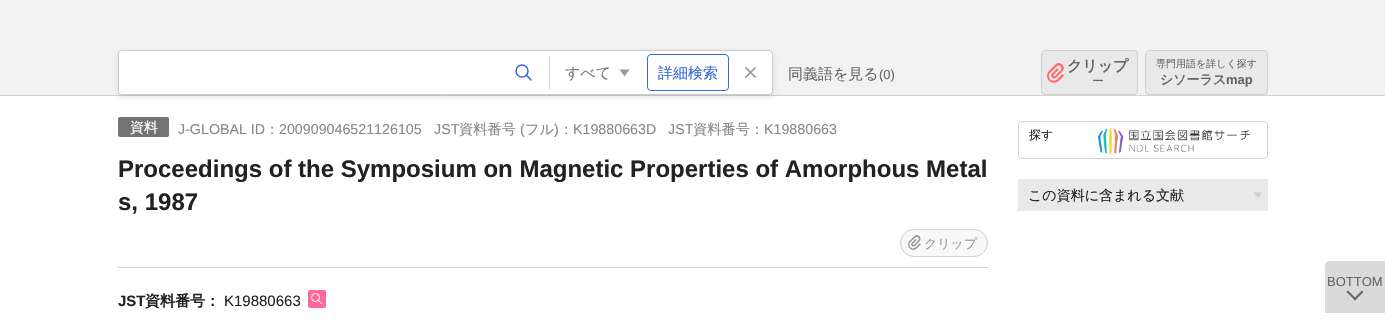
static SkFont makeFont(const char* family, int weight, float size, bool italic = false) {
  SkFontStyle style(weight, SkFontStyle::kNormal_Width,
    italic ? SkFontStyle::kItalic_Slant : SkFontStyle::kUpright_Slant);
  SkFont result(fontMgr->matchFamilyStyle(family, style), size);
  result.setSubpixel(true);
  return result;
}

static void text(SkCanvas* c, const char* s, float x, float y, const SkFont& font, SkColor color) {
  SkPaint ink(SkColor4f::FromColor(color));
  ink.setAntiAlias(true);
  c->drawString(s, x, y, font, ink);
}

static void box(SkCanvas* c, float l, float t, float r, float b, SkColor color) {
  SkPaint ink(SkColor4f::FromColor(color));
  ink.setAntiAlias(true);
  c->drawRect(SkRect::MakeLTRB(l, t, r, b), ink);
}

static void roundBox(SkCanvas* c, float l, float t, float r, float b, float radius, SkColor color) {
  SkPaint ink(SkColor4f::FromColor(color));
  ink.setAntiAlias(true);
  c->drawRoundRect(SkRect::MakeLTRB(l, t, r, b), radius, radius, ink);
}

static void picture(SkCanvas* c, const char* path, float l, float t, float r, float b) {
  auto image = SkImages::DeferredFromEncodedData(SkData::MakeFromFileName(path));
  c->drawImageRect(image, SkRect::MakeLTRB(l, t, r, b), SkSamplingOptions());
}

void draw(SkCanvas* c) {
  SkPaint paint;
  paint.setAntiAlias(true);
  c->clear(0xffffffff);
  box(c, 0, 0, 1385, 95, 0xfff2f2f2);
  box(c, 0, 95, 1385, 96, 0xffd1d1d1);
  paint.setColor(0x1a000000);
  paint.setMaskFilter(SkMaskFilter::MakeBlur(kNormal_SkBlurStyle, 2.5f));
  c->drawRoundRect(SkRect::MakeLTRB(118, 52, 773, 97), 4, 4, paint);
  paint.setMaskFilter(nullptr);
  paint.setColor(0xffffffff);
  c->drawRoundRect(SkRect::MakeLTRB(118.5f, 50.5f, 772.5f, 94.5f), 3.5f, 3.5f, paint);
  paint.setStyle(SkPaint::kStroke_Style);
  paint.setStrokeWidth(1);
  paint.setColor(0xffcccccc);
  c->drawRoundRect(SkRect::MakeLTRB(118.5f, 50.5f, 772.5f, 94.5f), 3.5f, 3.5f, paint);
  c->save();
  c->clipPath(SkPathBuilder().moveTo(122, 51).lineTo(769, 51).cubicTo(770.5f, 51, 772, 52.5f, 772, 54).lineTo(772, 91).cubicTo(772, 92.5f, 770.5f, 94, 769, 94).lineTo(122, 94).cubicTo(120.5f, 94, 119, 92.5f, 119, 91).lineTo(119, 54).cubicTo(119, 52.5f, 120.5f, 51, 122, 51).close().detach(), true);
  roundBox(c, 119, 51, 499, 94, 4, 0xffffffff);
  c->restore();
  paint.setStrokeWidth(1.5f);
  paint.setColor(0xff346ad9);
  c->drawCircle(522, 71, 6, paint);
  paint.setStrokeCap(SkPaint::kRound_Cap);
  paint.setStrokeJoin(SkPaint::kRound_Join);
  c->drawPath(SkPathBuilder().moveTo(526.5f, 75).lineTo(531, 80).detach(), paint);
  paint.setStyle(SkPaint::kFill_Style);
  paint.setColor(0xff999999);
  c->drawPath(SkPathBuilder().moveTo(629.5f, 69.5f).lineTo(624.5f, 76.5f).lineTo(619.5f, 69.5f).close().detach(), paint);
  box(c, 549, 56, 550, 89, 0xffd1d1d1);
  SkFont face1 = makeFont("WenQuanYi Zen Hei", 500, 15);
  text(c, "すべて", 565, 78, face1, 0xff777777);
  paint.setStyle(SkPaint::kStroke_Style);
  paint.setStrokeWidth(1);
  paint.setStrokeCap(SkPaint::kButt_Cap);
  paint.setStrokeJoin(SkPaint::kMiter_Join);
  paint.setColor(0xff346ad9);
  c->drawRoundRect(SkRect::MakeLTRB(647.5f, 54.5f, 728.5f, 90.5f), 3.5f, 3.5f, paint);
  text(c, "詳細検索", 658, 78, face1, 0xff346ad9);
  picture(c, "img_01.png", 745, 67, 756, 78);
  text(c, "同義語を見る", 788, 79, face1, 0xff666666);
  SkFont face2 = makeFont("Liberation Sans", 400, 13);
  text(c, "(0)", 879, 79, face2, 0xff666666);
  roundBox(c, 1041, 50, 1138, 95, 4, 0xffe9e9e9);
  picture(c, "img_02.png", 1047, 63, 1064, 83);
  paint.setColor(0xffd1d1d1);
  c->drawRoundRect(SkRect::MakeLTRB(1041.5f, 50.5f, 1137.5f, 94.5f), 3.5f, 3.5f, paint);
  SkFont face3 = makeFont("WenQuanYi Zen Hei", 700, 15);
  text(c, "クリップ", 1067, 71, face3, 0xff666666);
  SkFont face4 = makeFont("WenQuanYi Zen Hei", 500, 12);
  text(c, "ー", 1092, 85, face4, 0xff666666);
  paint.setStyle(SkPaint::kFill_Style);
  paint.setColor(0xffe9e9e9);
  c->drawRoundRect(SkRect::MakeLTRB(1145.5f, 50.5f, 1267.5f, 94.5f), 3.5f, 3.5f, paint);
  paint.setStyle(SkPaint::kStroke_Style);
  paint.setColor(0xffd1d1d1);
  c->drawRoundRect(SkRect::MakeLTRB(1145.5f, 50.5f, 1267.5f, 94.5f), 3.5f, 3.5f, paint);
  SkFont face5 = makeFont("WenQuanYi Zen Hei", 500, 10);
  text(c, "専門用語を詳しく探す", 1156, 67, face5, 0xff666666);
  SkFont face6 = makeFont("WenQuanYi Zen Hei", 700, 13);
  text(c, "シソーラス", 1160, 84, face6, 0xff666666);
  SkFont face7 = makeFont("Liberation Sans", 700, 13);
  text(c, "map", 1226, 84, face7, 0xff666666);
  box(c, 118, 267, 988, 268, 0xffd1d1d1);
  roundBox(c, 118, 117, 169, 137, 2, 0xff747474);
  SkFont face8 = makeFont("WenQuanYi Zen Hei", 500, 14);
  text(c, "資料", 130, 132, face8, 0xffffffff);
  SkFont face9 = makeFont("Liberation Sans", 400, 14.25f);
  text(c, "J-GLOBAL ID", 178, 134, face9, 0xff888888);
  SkFont face10 = makeFont("WenQuanYi Zen Hei", 500, 14.25f);
  text(c, "：", 265, 134, face10, 0xff888888);
  text(c, "200909046521126105", 279, 134, face9, 0xff888888);
  text(c, "JST", 434, 134, face9, 0xff888888);
  text(c, "資料番号", 459, 134, face10, 0xff888888);
  text(c, "(", 520, 134, face9, 0xff888888);
  text(c, "フル", 525, 134, face10, 0xff888888);
  text(c, ")", 554, 134, face9, 0xff888888);
  text(c, "：", 559, 134, face10, 0xff888888);
  text(c, "K19880663D", 573, 134, face9, 0xff888888);
  text(c, "JST", 668, 134, face9, 0xff888888);
  text(c, "資料番号：", 693, 134, face10, 0xff888888);
  text(c, "K19880663", 764, 134, face9, 0xff888888);
  SkFont face11 = makeFont("Liberation Sans", 700, 24);
  text(c, "Proceedings of the Symposium on Magnetic Properties of Amorphous Metal", 118, 177, face11, 0xff222222);
  text(c, "s, 1987", 118, 210, face11, 0xff222222);
  roundBox(c, 900, 229, 988, 257, 14, 0xfff8f8f8);
  picture(c, "img_03.png", 908, 235, 921, 250);
  c->drawRoundRect(SkRect::MakeLTRB(900.5f, 229.5f, 987.5f, 256.5f), 13.5f, 13.5f, paint);
  SkFont face12 = makeFont("WenQuanYi Zen Hei", 500, 13);
  text(c, "クリップ", 924, 248, face12, 0xff999999);
  SkFont face13 = makeFont("Liberation Sans", 700, 15);
  text(c, "JST", 118, 306, face13, 0xff222222);
  text(c, "資料番号：", 145, 306, face3, 0xff222222);
  SkFont face14 = makeFont("Liberation Sans", 400, 15);
  text(c, "K19880663", 224, 306, face14, 0xff222222);
  roundBox(c, 308, 290, 326, 308, 2, 0xffff6997);
  paint.setColor(0xffffffff);
  c->drawCircle(315.5f, 297.5f, 4, paint);
  paint.setStrokeCap(SkPaint::kRound_Cap);
  paint.setStrokeJoin(SkPaint::kRound_Join);
  c->drawPath(SkPathBuilder().moveTo(318.5f, 300.5f).lineTo(322, 304).detach(), paint);
  paint.setStrokeCap(SkPaint::kButt_Cap);
  paint.setStrokeJoin(SkPaint::kMiter_Join);
  paint.setColor(0xffd1d1d1);
  c->drawRoundRect(SkRect::MakeLTRB(1018.5f, 121.5f, 1267.5f, 158.5f), 3.5f, 3.5f, paint);
  text(c, "探す", 1029, 139, face4, 0xff222222);
  picture(c, "img_04.png", 1098, 128, 1250, 154);
  box(c, 1018, 179, 1268, 211, 0xffe9e9e9);
  paint.setStyle(SkPaint::kFill_Style);
  c->drawPath(SkPathBuilder().moveTo(1262.5f, 192.5f).lineTo(1258, 198.5f).lineTo(1253.5f, 192.5f).close().detach(), paint);
  text(c, "この資料に含まれる文献", 1028, 200, face8, 0xff222222);
  paint.setColor(0xffdadada);
  c->drawPath(SkPathBuilder().moveTo(1329, 261).lineTo(1385, 261).lineTo(1385, 313).lineTo(1325, 313).lineTo(1325, 265).cubicTo(1325, 263, 1327, 261, 1329, 261).close().detach(), paint);
  text(c, "BOTTOM", 1327, 286, face2, 0xff666666);
  paint.setColor(0xff666666);
  c->drawPath(SkPathBuilder().moveTo(1353.5f, 299).lineTo(1362, 290.5f).lineTo(1363.5f, 292).lineTo(1355, 300.5f).close().detach(), paint);
  c->drawPath(SkPathBuilder().moveTo(1346.5f, 292).lineTo(1348, 290.5f).lineTo(1356.5f, 299).lineTo(1355, 300.5f).close().detach(), paint);
}
